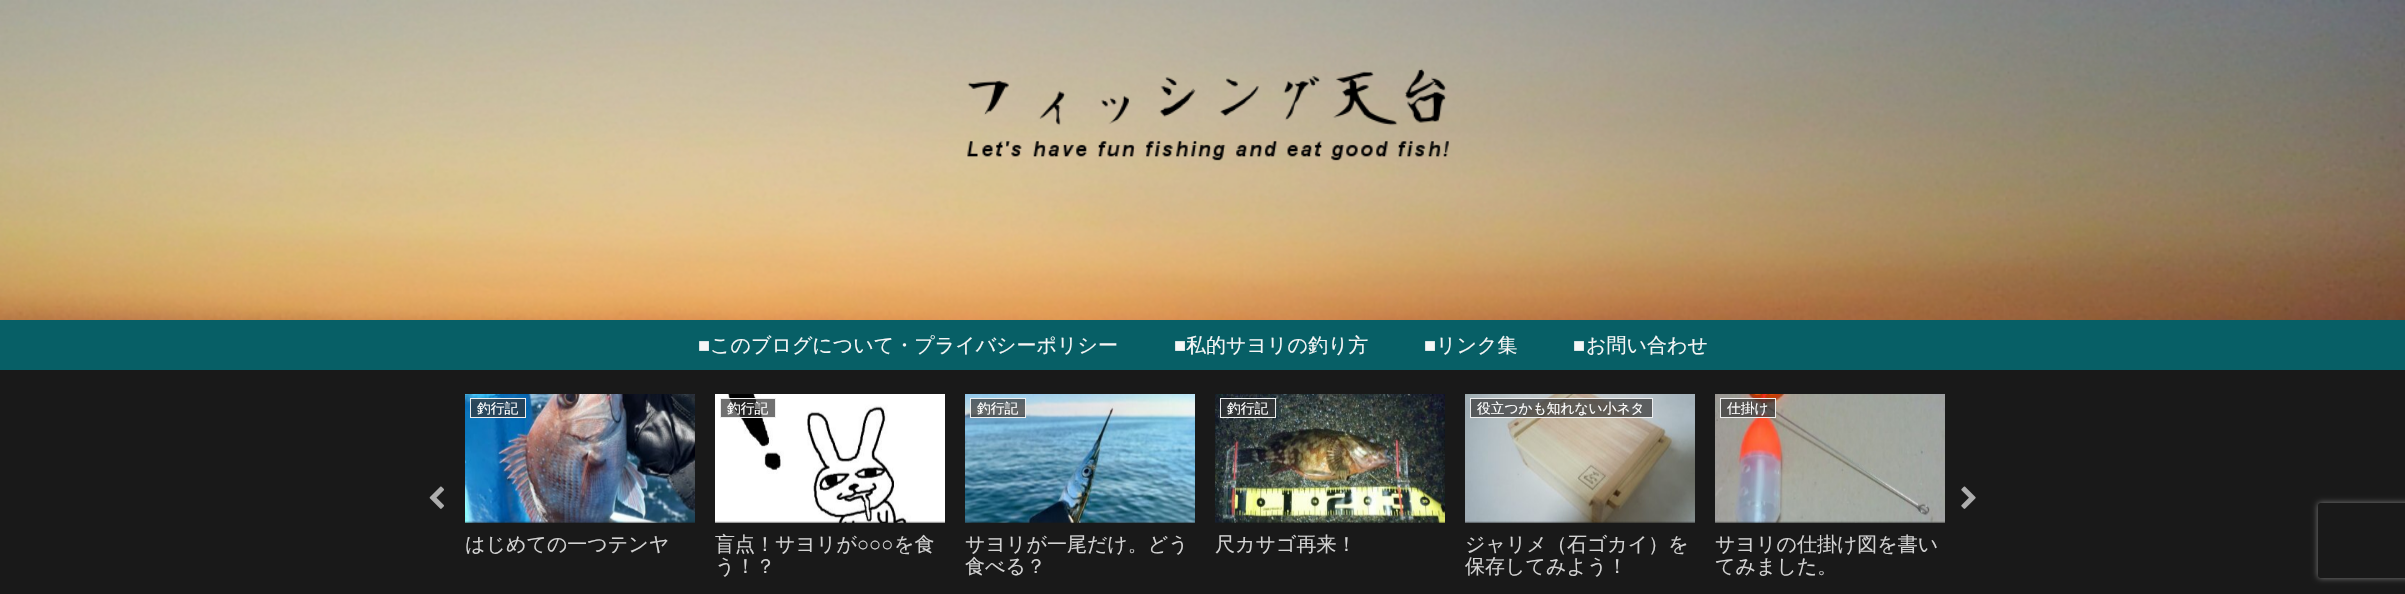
static SkFont makeFont(const char* family, int weight, float size, bool italic = false) {
  SkFontStyle style(weight, SkFontStyle::kNormal_Width,
    italic ? SkFontStyle::kItalic_Slant : SkFontStyle::kUpright_Slant);
  SkFont result(fontMgr->matchFamilyStyle(family, style), size);
  result.setSubpixel(true);
  return result;
}

static void text(SkCanvas* c, const char* s, float x, float y, const SkFont& font, SkColor color) {
  SkPaint ink(SkColor4f::FromColor(color));
  ink.setAntiAlias(true);
  c->drawString(s, x, y, font, ink);
}

static void box(SkCanvas* c, float l, float t, float r, float b, SkColor color) {
  SkPaint ink(SkColor4f::FromColor(color));
  ink.setAntiAlias(true);
  c->drawRect(SkRect::MakeLTRB(l, t, r, b), ink);
}

static void picture(SkCanvas* c, const char* path, float l, float t, float r, float b) {
  auto image = SkImages::DeferredFromEncodedData(SkData::MakeFromFileName(path));
  c->drawImageRect(image, SkRect::MakeLTRB(l, t, r, b), SkSamplingOptions());
}

void draw(SkCanvas* c) {
  SkPaint paint;
  paint.setAntiAlias(true);
  c->clear(0xff191919);
  picture(c, "img_01.png", 0, 0, 2405, 320);
  picture(c, "img_02.png", 967, 68, 1449, 161);
  box(c, 0, 320, 2405, 370, 0xff075f66);
  SkFont face1 = makeFont("Liberation Sans", 400, 20);
  text(c, "■", 698, 352, face1, 0xfff6f6f6);
  SkFont face2 = makeFont("WenQuanYi Zen Hei", 500, 20);
  text(c, "このブログについて・プライバシーポリシー", 710, 352, face2, 0xfff6f6f6);
  text(c, "■", 1174, 352, face1, 0xfff6f6f6);
  text(c, "私的サヨリの釣り方", 1186, 352, face2, 0xfff6f6f6);
  text(c, "■", 1424, 352, face1, 0xfff6f6f6);
  text(c, "リンク集", 1436, 352, face2, 0xfff6f6f6);
  text(c, "■", 1573, 352, face1, 0xfff6f6f6);
  text(c, "お問い合わせ", 1586, 352, face2, 0xfff6f6f6);
  picture(c, "img_03.png", 429, 486, 444, 509);
  picture(c, "img_04.png", 465, 394, 695, 523);
  paint.setColor(0xb3333333);
  c->drawRect(SkRect::MakeLTRB(470.5f, 398.5f, 525.5f, 417.5f), paint);
  paint.setStyle(SkPaint::kStroke_Style);
  paint.setStrokeWidth(1);
  paint.setColor(0xffeeeeee);
  c->drawRect(SkRect::MakeLTRB(470.5f, 398.5f, 525.5f, 417.5f), paint);
  SkFont face3 = makeFont("WenQuanYi Zen Hei", 500, 13.75f);
  text(c, "釣行記", 477, 413, face3, 0xffffffff);
  text(c, "はじめての一つテンヤ", 465, 551, face2, 0xffd3d3d3);
  picture(c, "img_05.png", 715, 394, 945, 523);
  paint.setStyle(SkPaint::kFill_Style);
  paint.setColor(0xb3333333);
  c->drawRect(SkRect::MakeLTRB(720.5f, 398.5f, 775.5f, 417.5f), paint);
  paint.setStyle(SkPaint::kStroke_Style);
  paint.setColor(0xffeeeeee);
  c->drawRect(SkRect::MakeLTRB(720.5f, 398.5f, 775.5f, 417.5f), paint);
  text(c, "釣行記", 727, 413, face3, 0xffffffff);
  text(c, "盲点！サヨリが", 715, 551, face2, 0xffd3d3d3);
  text(c, "○○○", 857, 551, face1, 0xffd3d3d3);
  text(c, "を食", 894, 551, face2, 0xffd3d3d3);
  text(c, "う！？", 715, 573, face2, 0xffd3d3d3);
  picture(c, "img_06.png", 965, 394, 1195, 523);
  paint.setStyle(SkPaint::kFill_Style);
  paint.setColor(0xb3333333);
  c->drawRect(SkRect::MakeLTRB(970.5f, 398.5f, 1025.5f, 417.5f), paint);
  paint.setStyle(SkPaint::kStroke_Style);
  paint.setColor(0xffeeeeee);
  c->drawRect(SkRect::MakeLTRB(970.5f, 398.5f, 1025.5f, 417.5f), paint);
  text(c, "釣行記", 977, 413, face3, 0xffffffff);
  text(c, "サヨリが一尾だけ。どう", 965, 551, face2, 0xffd3d3d3);
  text(c, "食べる？", 965, 573, face2, 0xffd3d3d3);
  picture(c, "img_07.png", 1215, 394, 1445, 523);
  paint.setStyle(SkPaint::kFill_Style);
  paint.setColor(0xb3333333);
  c->drawRect(SkRect::MakeLTRB(1220.5f, 398.5f, 1275.5f, 417.5f), paint);
  paint.setStyle(SkPaint::kStroke_Style);
  paint.setColor(0xffeeeeee);
  c->drawRect(SkRect::MakeLTRB(1220.5f, 398.5f, 1275.5f, 417.5f), paint);
  text(c, "釣行記", 1227, 413, face3, 0xffffffff);
  text(c, "尺カサゴ再来！", 1215, 551, face2, 0xffd3d3d3);
  picture(c, "img_08.png", 1465, 394, 1695, 523);
  paint.setStyle(SkPaint::kFill_Style);
  paint.setColor(0xb3333333);
  c->drawRect(SkRect::MakeLTRB(1470.5f, 398.5f, 1652.5f, 417.5f), paint);
  paint.setStyle(SkPaint::kStroke_Style);
  paint.setColor(0xffeeeeee);
  c->drawRect(SkRect::MakeLTRB(1470.5f, 398.5f, 1652.5f, 417.5f), paint);
  text(c, "役立つかも知れない小ネタ", 1477, 413, face3, 0xffffffff);
  text(c, "ジャリメ（石ゴカイ）を", 1465, 551, face2, 0xffd3d3d3);
  text(c, "保存してみよう！", 1465, 573, face2, 0xffd3d3d3);
  picture(c, "img_09.png", 1715, 394, 1945, 523);
  paint.setStyle(SkPaint::kFill_Style);
  paint.setColor(0xb3333333);
  c->drawRect(SkRect::MakeLTRB(1720.5f, 398.5f, 1775.5f, 417.5f), paint);
  paint.setStyle(SkPaint::kStroke_Style);
  paint.setColor(0xffeeeeee);
  c->drawRect(SkRect::MakeLTRB(1720.5f, 398.5f, 1775.5f, 417.5f), paint);
  text(c, "仕掛け", 1727, 413, face3, 0xffffffff);
  text(c, "サヨリの仕掛け図を書い", 1715, 551, face2, 0xffd3d3d3);
  text(c, "てみました。", 1715, 573, face2, 0xffd3d3d3);
  picture(c, "img_10.png", 1961, 486, 1976, 509);
  c->save();
  c->clipPath(SkPathBuilder(SkPathFillType::kEvenOdd).moveTo(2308, 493).lineTo(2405, 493).lineTo(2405, 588).lineTo(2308, 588).close().moveTo(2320.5f, 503).lineTo(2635.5f, 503).cubicTo(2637, 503, 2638, 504, 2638, 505.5f).lineTo(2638, 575.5f).cubicTo(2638, 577, 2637, 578, 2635.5f, 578).lineTo(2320.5f, 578).cubicTo(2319, 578, 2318, 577, 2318, 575.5f).lineTo(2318, 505.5f).cubicTo(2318, 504, 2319, 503, 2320.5f, 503).close().detach(), true);
  paint.setStyle(SkPaint::kFill_Style);
  paint.setColor(0xff808080);
  paint.setMaskFilter(SkMaskFilter::MakeBlur(kNormal_SkBlurStyle, 3));
  c->drawRoundRect(SkRect::MakeLTRB(2318, 503, 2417, 578), 2.5f, 2.5f, paint);
  paint.setMaskFilter(nullptr);
  c->restore();
}
